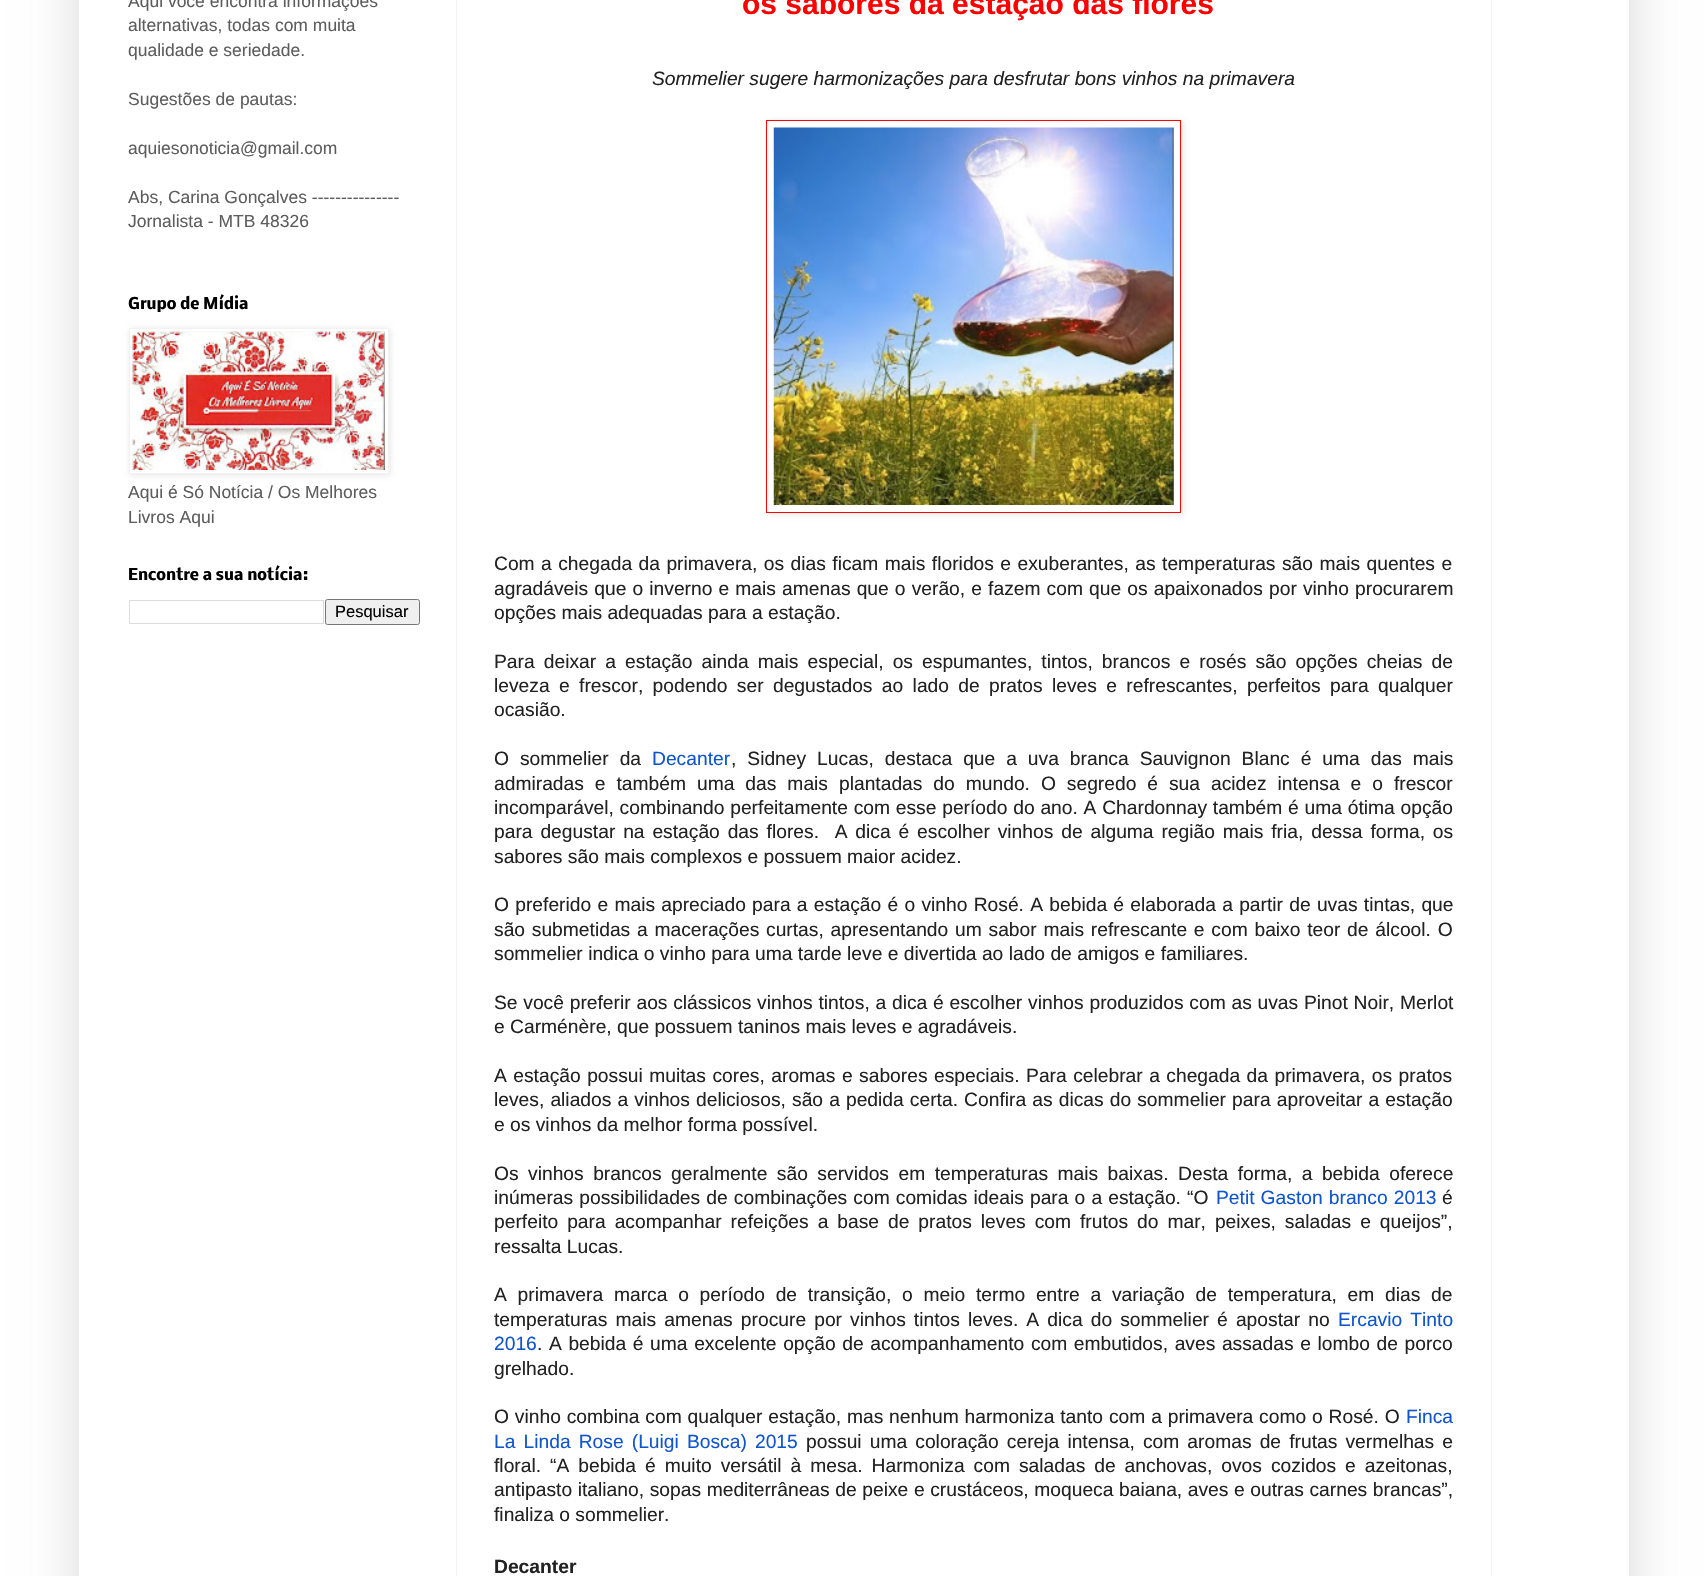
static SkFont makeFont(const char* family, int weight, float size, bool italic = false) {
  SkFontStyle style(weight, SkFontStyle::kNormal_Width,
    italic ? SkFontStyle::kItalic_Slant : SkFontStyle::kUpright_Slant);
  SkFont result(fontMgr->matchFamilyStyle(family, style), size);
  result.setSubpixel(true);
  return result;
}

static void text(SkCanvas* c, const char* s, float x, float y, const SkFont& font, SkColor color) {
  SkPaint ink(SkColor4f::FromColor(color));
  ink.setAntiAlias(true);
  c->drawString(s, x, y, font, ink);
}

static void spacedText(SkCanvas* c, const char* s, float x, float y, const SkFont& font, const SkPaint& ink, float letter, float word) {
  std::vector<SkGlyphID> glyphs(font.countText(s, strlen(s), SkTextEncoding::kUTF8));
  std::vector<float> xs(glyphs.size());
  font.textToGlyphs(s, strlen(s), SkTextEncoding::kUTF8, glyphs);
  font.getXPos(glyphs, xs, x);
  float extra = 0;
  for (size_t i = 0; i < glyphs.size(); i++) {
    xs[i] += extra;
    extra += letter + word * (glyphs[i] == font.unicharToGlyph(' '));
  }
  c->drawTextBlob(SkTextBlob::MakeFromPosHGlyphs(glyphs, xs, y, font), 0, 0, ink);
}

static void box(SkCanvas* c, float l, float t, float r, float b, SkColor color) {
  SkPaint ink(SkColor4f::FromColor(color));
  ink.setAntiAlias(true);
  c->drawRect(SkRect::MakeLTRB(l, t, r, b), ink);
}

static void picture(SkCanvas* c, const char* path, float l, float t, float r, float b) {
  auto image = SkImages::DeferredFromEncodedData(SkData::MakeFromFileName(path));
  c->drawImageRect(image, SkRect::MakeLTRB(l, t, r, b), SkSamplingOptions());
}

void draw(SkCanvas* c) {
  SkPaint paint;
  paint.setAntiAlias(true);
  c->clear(0xffffffff);
  paint.setColor(0x26000000);
  paint.setMaskFilter(SkMaskFilter::MakeBlur(kNormal_SkBlurStyle, 25));
  c->drawRect(SkRect::MakeLTRB(79, -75, 1629, 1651), paint);
  paint.setMaskFilter(nullptr);
  box(c, 79, 0, 1629, 1576, 0xffffffff);
  SkFont face1 = makeFont("Liberation Sans", 400, 17.5f);
  text(c, "Aqui você encontra informações", 128, 7, face1, 0xff5d5d5d);
  text(c, "alternativas, todas com muita", 128, 31, face1, 0xff5d5d5d);
  text(c, "qualidade e seriedade.", 128, 56, face1, 0xff5d5d5d);
  text(c, "Sugestões de pautas:", 128, 105, face1, 0xff5d5d5d);
  text(c, "aquiesonoticia@gmail.com", 128, 154, face1, 0xff5d5d5d);
  text(c, "Abs, Carina Gonçalves ---------------", 128, 203, face1, 0xff5d5d5d);
  text(c, "Jornalista - MTB 48326", 128, 227, face1, 0xff5d5d5d);
  SkFont face2 = makeFont("Nobile", 700, 15);
  text(c, "Grupo de Mídia", 128, 309, face2, 0xff000000);
  paint.setColor(0x1a000000);
  paint.setMaskFilter(SkMaskFilter::MakeBlur(kNormal_SkBlurStyle, 3));
  c->drawRect(SkRect::MakeLTRB(130, 329, 390, 475), paint);
  paint.setMaskFilter(nullptr);
  paint.setColor(0xffffffff);
  c->drawRect(SkRect::MakeLTRB(129.5f, 328.5f, 388.5f, 473.5f), paint);
  paint.setStyle(SkPaint::kStroke_Style);
  paint.setStrokeWidth(1);
  paint.setColor(0xfff2f2f2);
  c->drawRect(SkRect::MakeLTRB(129.5f, 328.5f, 388.5f, 473.5f), paint);
  picture(c, "img_01.png", 132, 331, 385, 470);
  text(c, "Aqui é Só Notícia / Os Melhores", 128, 498, face1, 0xff5d5d5d);
  text(c, "Livros Aqui", 128, 523, face1, 0xff5d5d5d);
  text(c, "Encontre a sua notícia:", 128, 580, face2, 0xff000000);
  paint.setColor(0xffdddddd);
  c->drawRect(SkRect::MakeLTRB(129.5f, 600.5f, 323.5f, 623.5f), paint);
  paint.setStyle(SkPaint::kFill_Style);
  paint.setColor(0xffefefef);
  c->drawRoundRect(SkRect::MakeLTRB(325.5f, 599.5f, 419.5f, 624.5f), 2, 2, paint);
  paint.setStyle(SkPaint::kStroke_Style);
  paint.setColor(0xff767676);
  c->drawRoundRect(SkRect::MakeLTRB(325.5f, 599.5f, 419.5f, 624.5f), 2, 2, paint);
  SkFont face3 = makeFont("Liberation Sans", 400, 16.5f);
  text(c, "Pesquisar", 335, 617, face3, 0xff000000);
  SkFont face4 = makeFont("Liberation Sans", 700, 30);
  text(c, "os sabores da estação das flores", 742, 14, face4, 0xffff0000);
  SkFont face5 = makeFont("Liberation Sans", 400, 19.25f, true);
  text(c, "Sommelier sugere harmonizações para desfrutar bons vinhos na primavera", 652, 85, face5, 0xff222222);
  paint.setStyle(SkPaint::kFill_Style);
  paint.setColor(0x1a000000);
  paint.setMaskFilter(SkMaskFilter::MakeBlur(kNormal_SkBlurStyle, 3));
  c->drawRect(SkRect::MakeLTRB(768, 121, 1183, 514), paint);
  paint.setMaskFilter(nullptr);
  paint.setColor(0xffffffff);
  c->drawRect(SkRect::MakeLTRB(766.5f, 120.5f, 1180.5f, 512.5f), paint);
  paint.setStyle(SkPaint::kStroke_Style);
  paint.setColor(0xfffa0606);
  c->drawRect(SkRect::MakeLTRB(766.5f, 120.5f, 1180.5f, 512.5f), paint);
  picture(c, "img_02.png", 773, 127, 1174, 505);
  SkFont face6 = makeFont("Liberation Sans", 400, 19.25f);
  paint.setStyle(SkPaint::kFill_Style);
  paint.setColor(0xff222222);
  spacedText(c, "Com a chegada da primavera, os dias ficam mais floridos e exuberantes, as temperaturas são mais quentes e", 494, 570, face6, paint, 0, 1.1f);
  spacedText(c, "agradáveis que o inverno e mais amenas que o verão, e fazem com que os apaixonados por vinho procurarem", 494, 595, face6, paint, 0, 0.75f);
  text(c, "opções mais adequadas para a estação.", 494, 619, face6, 0xff222222);
  spacedText(c, "Para deixar a estação ainda mais especial, os espumantes, tintos, brancos e rosés são opções cheias de", 494, 668, face6, paint, 0, 3.75f);
  spacedText(c, "leveza e frescor, podendo ser degustados ao lado de pratos leves e refrescantes, perfeitos para qualquer", 494, 692, face6, paint, 0, 4);
  text(c, "ocasião.", 494, 716, face6, 0xff222222);
  spacedText(c, "O sommelier da", 494, 765, face6, paint, 0, 5.6f);
  text(c, "Decanter", 652, 765, face6, 0xff1155cc);
  spacedText(c, ", Sidney Lucas, destaca que a uva branca Sauvignon Blanc é uma das mais", 731, 765, face6, paint, 0, 5.6f);
  spacedText(c, "admiradas e também uma das mais plantadas do mundo. O segredo é sua acidez intensa e o frescor", 494, 790, face6, paint, 0, 5.6f);
  spacedText(c, "incomparável, combinando perfeitamente com esse período do ano. A Chardonnay também é uma ótima opção", 494, 814, face6, paint, 0, 0.4f);
  spacedText(c, "para degustar na estação das flores.  A dica é escolher vinhos de alguma região mais fria, dessa forma, os", 494, 838, face6, paint, 0, 2.5f);
  text(c, "sabores são mais complexos e possuem maior acidez.", 494, 863, face6, 0xff222222);
  spacedText(c, "O preferido e mais apreciado para a estação é o vinho Rosé. A bebida é elaborada a partir de uvas tintas, que", 494, 911, face6, paint, 0, 0.9f);
  spacedText(c, "são submetidas a macerações curtas, apresentando um sabor mais refrescante e com baixo teor de álcool. O", 494, 936, face6, paint, 0, 1.4f);
  text(c, "sommelier indica o vinho para uma tarde leve e divertida ao lado de amigos e familiares.", 494, 960, face6, 0xff222222);
  spacedText(c, "Se você preferir aos clássicos vinhos tintos, a dica é escolher vinhos produzidos com as uvas Pinot Noir, Merlot", 494, 1009, face6, paint, 0, 0.4f);
  text(c, "e Carménère, que possuem taninos mais leves e agradáveis.", 494, 1033, face6, 0xff222222);
  spacedText(c, "A estação possui muitas cores, aromas e sabores especiais. Para celebrar a chegada da primavera, os pratos", 494, 1082, face6, paint, 0, 1.1f);
  spacedText(c, "leves, aliados a vinhos deliciosos, são a pedida certa. Confira as dicas do sommelier para aproveitar a estação", 494, 1106, face6, paint, 0, 0.75f);
  text(c, "e os vinhos da melhor forma possível.", 494, 1131, face6, 0xff222222);
  spacedText(c, "Os vinhos brancos geralmente são servidos em temperaturas mais baixas. Desta forma, a bebida oferece", 494, 1180, face6, paint, 0, 4.1f);
  spacedText(c, "inúmeras possibilidades de combinações com comidas ideais para o a estação. “O", 494, 1204, face6, paint, 0, 0.75f);
  paint.setColor(0xff1155cc);
  spacedText(c, "Petit Gaston branco 2013", 1216, 1204, face6, paint, 0, 0.75f);
  text(c, "é", 1442, 1204, face6, 0xff222222);
  paint.setColor(0xff222222);
  spacedText(c, "perfeito para acompanhar refeições a base de pratos leves com frutos do mar, peixes, saladas e queijos”,", 494, 1228, face6, paint, 0, 3.6f);
  text(c, "ressalta Lucas.", 494, 1253, face6, 0xff222222);
  spacedText(c, "A primavera marca o período de transição, o meio termo entre a variação de temperatura, em dias de", 494, 1301, face6, paint, 0, 5.4f);
  spacedText(c, "temperaturas mais amenas procure por vinhos tintos leves. A dica do sommelier é apostar no", 494, 1326, face6, paint, 0, 2.75f);
  paint.setColor(0xff1155cc);
  spacedText(c, "Ercavio Tinto", 1338, 1326, face6, paint, 0, 2.75f);
  text(c, "2016", 494, 1350, face6, 0xff1155cc);
  paint.setColor(0xff222222);
  spacedText(c, ". A bebida é uma excelente opção de acompanhamento com embutidos, aves assadas e lombo de porco", 537, 1350, face6, paint, 0, 1.25f);
  text(c, "grelhado.", 494, 1375, face6, 0xff222222);
  spacedText(c, "O vinho combina com qualquer estação, mas nenhum harmoniza tanto com a primavera como o Rosé. O", 494, 1423, face6, paint, 0, 0.5f);
  text(c, "Finca", 1406, 1423, face6, 0xff1155cc);
  paint.setColor(0xff1155cc);
  spacedText(c, "La Linda Rose (Luigi Bosca) 2015", 494, 1448, face6, paint, 0, 2.75f);
  paint.setColor(0xff222222);
  spacedText(c, "possui uma coloração cereja intensa, com aromas de frutas vermelhas e", 806, 1448, face6, paint, 0, 2.75f);
  spacedText(c, "floral. “A bebida é muito versátil à mesa. Harmoniza com saladas de anchovas, ovos cozidos e azeitonas,", 494, 1472, face6, paint, 0, 3.6f);
  spacedText(c, "antipasto italiano, sopas mediterrâneas de peixe e crustáceos, moqueca baiana, aves e outras carnes brancas”,", 494, 1496, face6, paint, 0, 0.25f);
  text(c, "finaliza o sommelier.", 494, 1521, face6, 0xff222222);
  SkFont face7 = makeFont("Liberation Sans", 700, 19.25f);
  text(c, "Decanter", 494, 1573, face7, 0xff222222);
  box(c, 456, 0, 457, 1576, 0xfff2f2f2);
  box(c, 1491, 0, 1492, 1576, 0xfff2f2f2);
}
